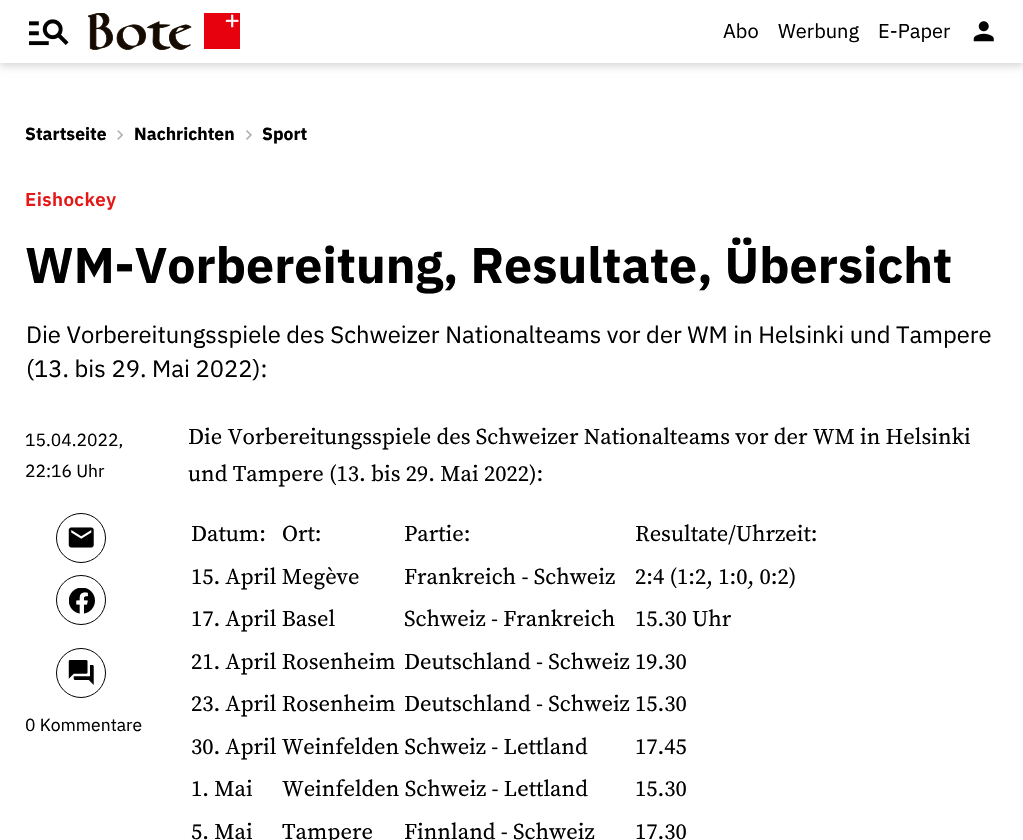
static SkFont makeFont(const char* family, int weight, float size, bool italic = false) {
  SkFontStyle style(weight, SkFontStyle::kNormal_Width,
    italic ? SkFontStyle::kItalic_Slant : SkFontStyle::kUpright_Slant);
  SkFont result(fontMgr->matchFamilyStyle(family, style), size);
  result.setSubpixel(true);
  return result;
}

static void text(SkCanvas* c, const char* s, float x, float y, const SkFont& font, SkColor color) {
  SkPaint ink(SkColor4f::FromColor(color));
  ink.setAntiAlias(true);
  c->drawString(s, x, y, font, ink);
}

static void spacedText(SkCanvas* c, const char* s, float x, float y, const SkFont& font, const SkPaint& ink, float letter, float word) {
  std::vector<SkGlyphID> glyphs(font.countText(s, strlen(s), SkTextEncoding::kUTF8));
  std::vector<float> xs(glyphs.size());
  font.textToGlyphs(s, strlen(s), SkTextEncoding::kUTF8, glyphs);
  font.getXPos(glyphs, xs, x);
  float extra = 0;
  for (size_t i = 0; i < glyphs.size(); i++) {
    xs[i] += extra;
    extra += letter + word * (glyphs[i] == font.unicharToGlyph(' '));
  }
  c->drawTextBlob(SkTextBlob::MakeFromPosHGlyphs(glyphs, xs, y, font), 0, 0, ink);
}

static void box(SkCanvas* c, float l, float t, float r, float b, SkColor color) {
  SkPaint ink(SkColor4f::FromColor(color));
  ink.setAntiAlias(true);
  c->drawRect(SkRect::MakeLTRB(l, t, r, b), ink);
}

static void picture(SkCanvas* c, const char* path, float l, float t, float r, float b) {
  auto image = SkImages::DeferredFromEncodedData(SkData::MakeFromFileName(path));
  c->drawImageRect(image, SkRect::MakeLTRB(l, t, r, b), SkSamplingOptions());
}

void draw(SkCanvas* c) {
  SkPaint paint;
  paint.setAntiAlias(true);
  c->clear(0xffffffff);
  paint.setColor(0x29000000);
  paint.setMaskFilter(SkMaskFilter::MakeBlur(kNormal_SkBlurStyle, 4));
  c->drawRect(SkRect::MakeLTRB(0, 4, 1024, 66), paint);
  paint.setMaskFilter(nullptr);
  box(c, 0, 0, 1023, 63, 0xffffffff);
  picture(c, "img_01.png", 29, 19, 69, 46);
  picture(c, "img_02.png", 88, 13, 240, 50);
  SkFont face1 = makeFont("IBM Plex Sans", 400, 20);
  text(c, "Abo", 723, 38, face1, 0xff000000);
  text(c, "Werbung", 778, 38, face1, 0xff000000);
  text(c, "E-Paper", 878, 38, face1, 0xff000000);
  picture(c, "img_03.png", 973, 21, 994, 42);
  SkFont face2 = makeFont("IBM Plex Sans", 700, 17.5f);
  text(c, "Startseite", 25, 140, face2, 0xff000000);
  picture(c, "img_04.png", 117, 130, 124, 140);
  text(c, "Nachrichten", 134, 140, face2, 0xff000000);
  picture(c, "img_05.png", 246, 130, 252, 140);
  text(c, "Sport", 262, 140, face2, 0xff000000);
  SkFont face3 = makeFont("IBM Plex Sans", 600, 18.75f);
  paint.setColor(0xffe61717);
  spacedText(c, "Eishockey", 25, 206, face3, paint, 0.4f, 0);
  SkFont face4 = makeFont("IBM Plex Sans", 700, 50);
  text(c, "WM-Vorbereitung, Resultate, Übersicht", 25, 283, face4, 0xff000000);
  SkFont face5 = makeFont("IBM Plex Sans", 400, 23.75f);
  text(c, "Die Vorbereitungsspiele des Schweizer Nationalteams vor der WM in Helsinki und Tampere", 26, 343, face5, 0xff000000);
  text(c, "(13. bis 29. Mai 2022):", 26, 377, face5, 0xff000000);
  SkFont face6 = makeFont("IBM Plex Sans", 400, 17.5f);
  text(c, "15.04.2022,", 25, 446, face6, 0xff000000);
  text(c, "22:16 Uhr", 25, 477, face6, 0xff000000);
  paint.setStyle(SkPaint::kStroke_Style);
  paint.setStrokeWidth(1);
  paint.setColor(0xff000000);
  c->drawCircle(81, 538, 24.5f, paint);
  picture(c, "img_06.png", 68, 527, 94, 548);
  c->drawCircle(81, 600, 24.5f, paint);
  picture(c, "img_07.png", 69, 588, 95, 614);
  c->drawCircle(81, 673, 24.5f, paint);
  picture(c, "img_08.png", 68, 660, 94, 685);
  text(c, "0 Kommentare", 25, 731, face6, 0xff000000);
  SkFont face7 = makeFont("Source Serif Pro", 400, 22.5f);
  text(c, "Die Vorbereitungsspiele des Schweizer Nationalteams vor der WM in Helsinki", 188, 444, face7, 0xff000000);
  text(c, "und Tampere (13. bis 29. Mai 2022):", 188, 481, face7, 0xff000000);
  text(c, "Datum:", 191, 541, face7, 0xff000000);
  text(c, "Ort:", 282, 541, face7, 0xff000000);
  text(c, "Partie:", 404, 541, face7, 0xff000000);
  text(c, "Resultate/Uhrzeit:", 635, 541, face7, 0xff000000);
  text(c, "15. April Megève", 191, 584, face7, 0xff000000);
  text(c, "Frankreich - Schweiz", 404, 584, face7, 0xff000000);
  text(c, "2:4 (1:2, 1:0, 0:2)", 635, 584, face7, 0xff000000);
  text(c, "17. April Basel", 191, 626, face7, 0xff000000);
  text(c, "Schweiz - Frankreich", 404, 626, face7, 0xff000000);
  text(c, "15.30 Uhr", 635, 626, face7, 0xff000000);
  text(c, "21. April Rosenheim", 191, 669, face7, 0xff000000);
  text(c, "Deutschland - Schweiz 19.30", 404, 669, face7, 0xff000000);
  text(c, "23. April Rosenheim", 191, 711, face7, 0xff000000);
  text(c, "Deutschland - Schweiz 15.30", 404, 711, face7, 0xff000000);
  text(c, "30. April Weinfelden Schweiz - Lettland", 191, 754, face7, 0xff000000);
  text(c, "17.45", 635, 754, face7, 0xff000000);
  text(c, "1. Mai", 191, 796, face7, 0xff000000);
  text(c, "Weinfelden Schweiz - Lettland", 282, 796, face7, 0xff000000);
  text(c, "15.30", 635, 796, face7, 0xff000000);
  text(c, "5. Mai", 191, 839, face7, 0xff000000);
  text(c, "Tampere", 282, 839, face7, 0xff000000);
  text(c, "Finnland - Schweiz", 404, 839, face7, 0xff000000);
  text(c, "17.30", 635, 839, face7, 0xff000000);
}
